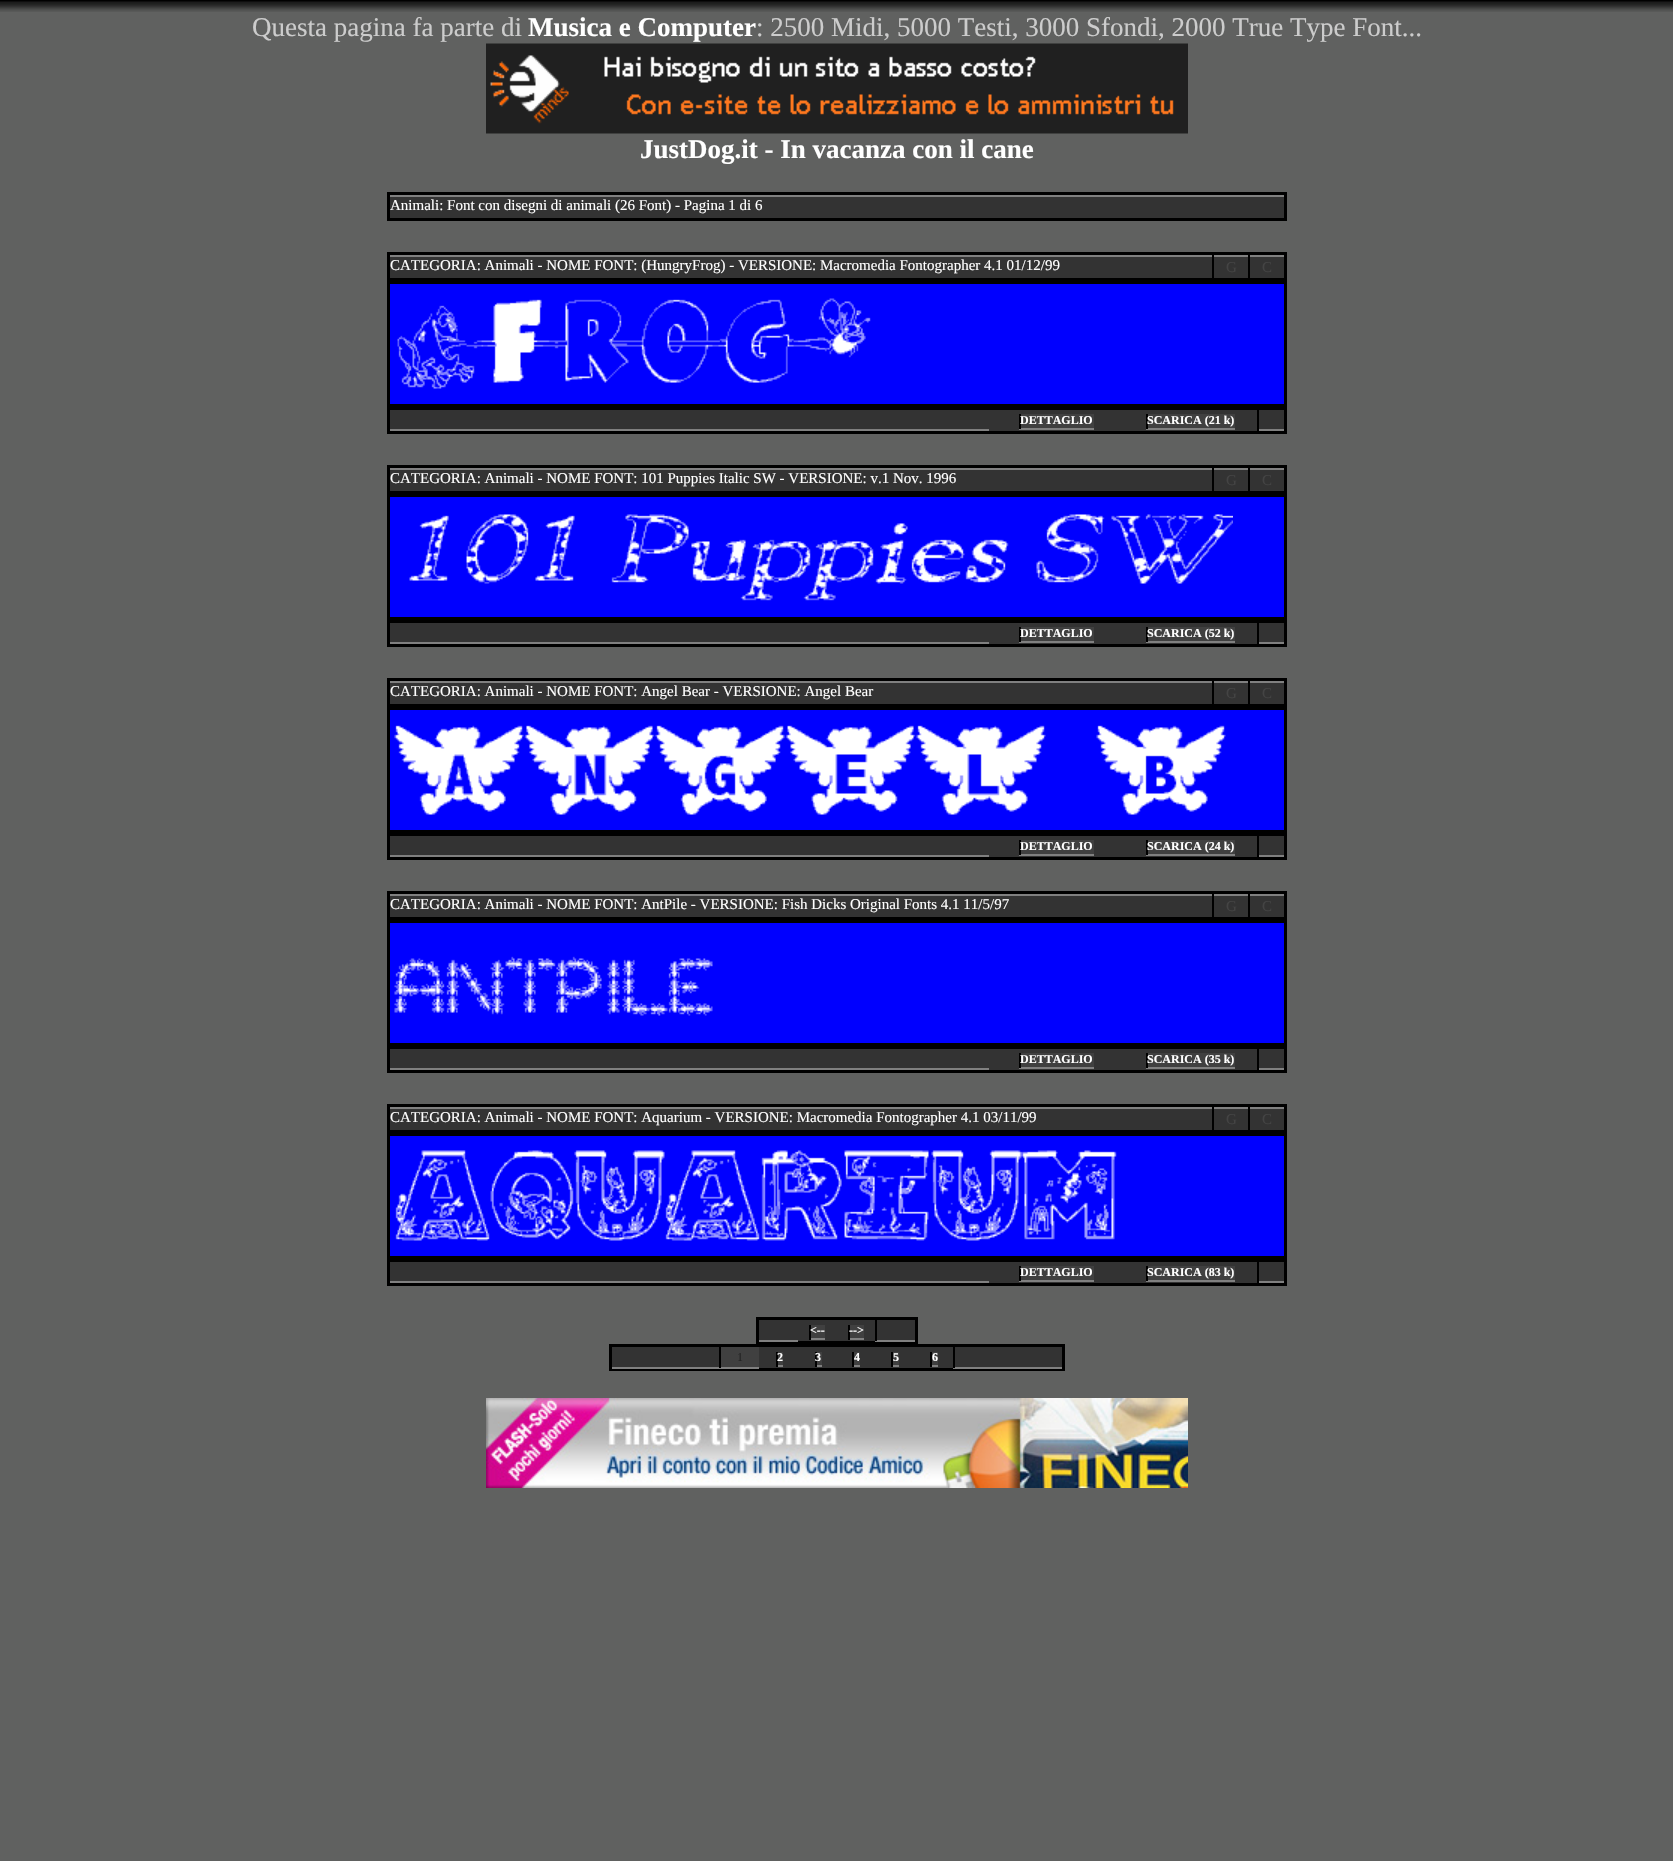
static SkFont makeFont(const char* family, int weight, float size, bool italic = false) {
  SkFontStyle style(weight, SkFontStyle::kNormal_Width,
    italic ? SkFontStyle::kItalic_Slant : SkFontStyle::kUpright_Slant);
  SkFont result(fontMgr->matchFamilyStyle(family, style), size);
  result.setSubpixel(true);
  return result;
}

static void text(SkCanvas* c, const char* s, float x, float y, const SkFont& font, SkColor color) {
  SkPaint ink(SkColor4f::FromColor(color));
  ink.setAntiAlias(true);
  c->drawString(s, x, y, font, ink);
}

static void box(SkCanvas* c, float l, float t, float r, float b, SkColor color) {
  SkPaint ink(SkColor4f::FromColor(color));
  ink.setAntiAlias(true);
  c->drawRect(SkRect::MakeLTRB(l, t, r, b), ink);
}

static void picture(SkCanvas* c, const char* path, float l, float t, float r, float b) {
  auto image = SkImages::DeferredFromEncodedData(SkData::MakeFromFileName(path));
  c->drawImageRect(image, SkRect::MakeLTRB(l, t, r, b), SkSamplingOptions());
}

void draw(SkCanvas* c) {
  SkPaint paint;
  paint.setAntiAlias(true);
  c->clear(0xff606160);
  picture(c, "img_01.png", 0, 0, 1673, 12);
  SkFont face1 = makeFont("Liberation Serif", 400, 27);
  text(c, "Questa pagina fa parte di", 252, 36, face1, 0xffcccccc);
  SkFont face2 = makeFont("Liberation Serif", 700, 27);
  text(c, "Musica e Computer", 528, 36, face2, 0xffffffff);
  text(c, ": 2500 Midi, 5000 Testi, 3000 Sfondi, 2000 True Type Font...", 756, 36, face1, 0xffcccccc);
  picture(c, "img_02.png", 486, 43, 1188, 134);
  text(c, "JustDog.it - In vacanza con il cane", 640, 158, face2, 0xffffffff);
  box(c, 387, 192, 1287, 221, 0xff000000);
  box(c, 390, 197, 1284, 218, 0xff333333);
  box(c, 390, 195, 1284, 197, 0xff808080);
  SkFont face3 = makeFont("Liberation Serif", 400, 15);
  text(c, "Animali: Font con disegni di animali (26 Font) - Pagina 1 di 6", 390, 210, face3, 0xffffffff);
  box(c, 387, 252, 1287, 434, 0xff000000);
  box(c, 390, 257, 1284, 278, 0xff333333);
  box(c, 390, 255, 1284, 257, 0xff808080);
  text(c, "CATEGORIA: Animali - NOME FONT: (HungryFrog) - VERSIONE: Macromedia Fontographer 4.1 01/12/99", 390, 270, face3, 0xffffffff);
  box(c, 1212, 255, 1214, 278, 0xff000000);
  text(c, "G", 1226, 272, face3, 0xff444444);
  box(c, 1248, 255, 1250, 278, 0xff000000);
  text(c, "C", 1262, 272, face3, 0xff444444);
  box(c, 390, 284, 1284, 404, 0xff0000ff);
  picture(c, "img_03.png", 397, 298, 871, 389);
  box(c, 390, 410, 1284, 431, 0xff333333);
  box(c, 1021, 414, 1094, 428, 0xff404040);
  box(c, 1019, 428, 1094, 430, 0xff808080);
  box(c, 1019, 414, 1021, 429, 0xff000000);
  SkFont face4 = makeFont("Liberation Serif", 700, 12);
  text(c, "DETTAGLIO", 1020, 424, face4, 0xffffffff);
  box(c, 1148, 414, 1235, 428, 0xff404040);
  box(c, 1146, 428, 1235, 430, 0xff808080);
  box(c, 1146, 414, 1148, 429, 0xff000000);
  text(c, "SCARICA (21 k)", 1147, 424, face4, 0xffffffff);
  box(c, 1257, 429, 1284, 431, 0xff808080);
  box(c, 1257, 410, 1259, 431, 0xff000000);
  box(c, 390, 429, 989, 431, 0xff808080);
  box(c, 387, 465, 1287, 647, 0xff000000);
  box(c, 390, 470, 1284, 491, 0xff333333);
  box(c, 390, 468, 1284, 470, 0xff808080);
  text(c, "CATEGORIA: Animali - NOME FONT: 101 Puppies Italic SW - VERSIONE: v.1 Nov. 1996", 390, 483, face3, 0xffffffff);
  box(c, 1212, 468, 1214, 491, 0xff000000);
  text(c, "G", 1226, 485, face3, 0xff444444);
  box(c, 1248, 468, 1250, 491, 0xff000000);
  text(c, "C", 1262, 485, face3, 0xff444444);
  box(c, 390, 497, 1284, 617, 0xff0000ff);
  picture(c, "img_04.png", 409, 514, 1233, 601);
  box(c, 390, 623, 1284, 644, 0xff333333);
  box(c, 1021, 627, 1094, 641, 0xff404040);
  box(c, 1019, 641, 1094, 643, 0xff808080);
  box(c, 1019, 627, 1021, 642, 0xff000000);
  text(c, "DETTAGLIO", 1020, 637, face4, 0xffffffff);
  box(c, 1148, 627, 1235, 641, 0xff404040);
  box(c, 1146, 641, 1235, 643, 0xff808080);
  box(c, 1146, 627, 1148, 642, 0xff000000);
  text(c, "SCARICA (52 k)", 1147, 637, face4, 0xffffffff);
  box(c, 1257, 642, 1284, 644, 0xff808080);
  box(c, 1257, 623, 1259, 644, 0xff000000);
  box(c, 390, 642, 989, 644, 0xff808080);
  box(c, 387, 678, 1287, 860, 0xff000000);
  box(c, 390, 683, 1284, 704, 0xff333333);
  box(c, 390, 681, 1284, 683, 0xff808080);
  text(c, "CATEGORIA: Animali - NOME FONT: Angel Bear - VERSIONE: Angel Bear", 390, 696, face3, 0xffffffff);
  box(c, 1212, 681, 1214, 704, 0xff000000);
  text(c, "G", 1226, 698, face3, 0xff444444);
  box(c, 1248, 681, 1250, 704, 0xff000000);
  text(c, "C", 1262, 698, face3, 0xff444444);
  box(c, 390, 710, 1284, 830, 0xff0000ff);
  picture(c, "img_05.png", 394, 725, 1226, 815);
  box(c, 390, 836, 1284, 857, 0xff333333);
  box(c, 1021, 840, 1094, 854, 0xff404040);
  box(c, 1019, 854, 1094, 856, 0xff808080);
  box(c, 1019, 840, 1021, 855, 0xff000000);
  text(c, "DETTAGLIO", 1020, 850, face4, 0xffffffff);
  box(c, 1148, 840, 1235, 854, 0xff404040);
  box(c, 1146, 854, 1235, 856, 0xff808080);
  box(c, 1146, 840, 1148, 855, 0xff000000);
  text(c, "SCARICA (24 k)", 1147, 850, face4, 0xffffffff);
  box(c, 1257, 855, 1284, 857, 0xff808080);
  box(c, 1257, 836, 1259, 857, 0xff000000);
  box(c, 390, 855, 989, 857, 0xff808080);
  box(c, 387, 891, 1287, 1073, 0xff000000);
  box(c, 390, 896, 1284, 917, 0xff333333);
  box(c, 390, 894, 1284, 896, 0xff808080);
  text(c, "CATEGORIA: Animali - NOME FONT: AntPile - VERSIONE: Fish Dicks Original Fonts 4.1 11/5/97", 390, 909, face3, 0xffffffff);
  box(c, 1212, 894, 1214, 917, 0xff000000);
  text(c, "G", 1226, 911, face3, 0xff444444);
  box(c, 1248, 894, 1250, 917, 0xff000000);
  text(c, "C", 1262, 911, face3, 0xff444444);
  box(c, 390, 923, 1284, 1043, 0xff0000ff);
  picture(c, "img_06.png", 394, 956, 713, 1016);
  box(c, 390, 1049, 1284, 1070, 0xff333333);
  box(c, 1021, 1053, 1094, 1067, 0xff404040);
  box(c, 1019, 1067, 1094, 1069, 0xff808080);
  box(c, 1019, 1053, 1021, 1068, 0xff000000);
  text(c, "DETTAGLIO", 1020, 1063, face4, 0xffffffff);
  box(c, 1148, 1053, 1235, 1067, 0xff404040);
  box(c, 1146, 1067, 1235, 1069, 0xff808080);
  box(c, 1146, 1053, 1148, 1068, 0xff000000);
  text(c, "SCARICA (35 k)", 1147, 1063, face4, 0xffffffff);
  box(c, 1257, 1068, 1284, 1070, 0xff808080);
  box(c, 1257, 1049, 1259, 1070, 0xff000000);
  box(c, 390, 1068, 989, 1070, 0xff808080);
  box(c, 387, 1104, 1287, 1286, 0xff000000);
  box(c, 390, 1109, 1284, 1130, 0xff333333);
  box(c, 390, 1107, 1284, 1109, 0xff808080);
  text(c, "CATEGORIA: Animali - NOME FONT: Aquarium - VERSIONE: Macromedia Fontographer 4.1 03/11/99", 390, 1122, face3, 0xffffffff);
  box(c, 1212, 1107, 1214, 1130, 0xff000000);
  text(c, "G", 1226, 1124, face3, 0xff444444);
  box(c, 1248, 1107, 1250, 1130, 0xff000000);
  text(c, "C", 1262, 1124, face3, 0xff444444);
  box(c, 390, 1136, 1284, 1256, 0xff0000ff);
  picture(c, "img_07.png", 395, 1150, 1117, 1241);
  box(c, 390, 1262, 1284, 1283, 0xff333333);
  box(c, 1021, 1266, 1094, 1280, 0xff404040);
  box(c, 1019, 1280, 1094, 1282, 0xff808080);
  box(c, 1019, 1266, 1021, 1281, 0xff000000);
  text(c, "DETTAGLIO", 1020, 1276, face4, 0xffffffff);
  box(c, 1148, 1266, 1235, 1280, 0xff404040);
  box(c, 1146, 1280, 1235, 1282, 0xff808080);
  box(c, 1146, 1266, 1148, 1281, 0xff000000);
  text(c, "SCARICA (83 k)", 1147, 1276, face4, 0xffffffff);
  box(c, 1257, 1281, 1284, 1283, 0xff808080);
  box(c, 1257, 1262, 1259, 1283, 0xff000000);
  box(c, 390, 1281, 989, 1283, 0xff808080);
  box(c, 756, 1317, 918, 1344, 0xff000000);
  box(c, 759, 1320, 915, 1341, 0xff333333);
  box(c, 811, 1325, 825, 1338, 0xff404040);
  box(c, 809, 1338, 825, 1340, 0xff808080);
  box(c, 809, 1325, 811, 1340, 0xff000000);
  text(c, "<--", 810, 1334, face4, 0xffffffff);
  box(c, 850, 1325, 864, 1338, 0xff404040);
  box(c, 848, 1338, 864, 1340, 0xff808080);
  box(c, 848, 1325, 850, 1340, 0xff000000);
  text(c, "-->", 849, 1334, face4, 0xffffffff);
  box(c, 875, 1340, 915, 1342, 0xff808080);
  box(c, 875, 1320, 877, 1341, 0xff000000);
  box(c, 759, 1340, 798, 1342, 0xff808080);
  box(c, 609, 1344, 1065, 1371, 0xff000000);
  box(c, 612, 1347, 1062, 1368, 0xff333333);
  box(c, 721, 1347, 759, 1367, 0xff404040);
  box(c, 612, 1367, 759, 1369, 0xff808080);
  box(c, 719, 1347, 721, 1368, 0xff000000);
  SkFont face5 = makeFont("Liberation Serif", 400, 12);
  text(c, "1", 737, 1361, face5, 0xff222222);
  box(c, 778, 1352, 783, 1365, 0xff404040);
  box(c, 776, 1365, 783, 1367, 0xff808080);
  box(c, 776, 1352, 778, 1367, 0xff000000);
  text(c, "2", 777, 1361, face4, 0xffffffff);
  box(c, 817, 1352, 822, 1365, 0xff404040);
  box(c, 815, 1365, 822, 1367, 0xff808080);
  box(c, 815, 1352, 817, 1367, 0xff000000);
  text(c, "3", 815, 1361, face4, 0xffffffff);
  box(c, 854, 1352, 860, 1365, 0xff404040);
  text(c, "4", 854, 1361, face4, 0xffffffff);
  box(c, 852, 1365, 860, 1367, 0xff808080);
  box(c, 852, 1352, 854, 1367, 0xff000000);
  box(c, 893, 1352, 899, 1365, 0xff404040);
  text(c, "5", 893, 1361, face4, 0xffffffff);
  box(c, 891, 1365, 899, 1367, 0xff808080);
  box(c, 891, 1352, 893, 1367, 0xff000000);
  box(c, 932, 1352, 938, 1365, 0xff404040);
  box(c, 930, 1365, 938, 1367, 0xff808080);
  box(c, 930, 1352, 932, 1367, 0xff000000);
  text(c, "6", 932, 1361, face4, 0xffffffff);
  box(c, 953, 1367, 1062, 1369, 0xff808080);
  box(c, 953, 1347, 955, 1368, 0xff000000);
  picture(c, "img_08.png", 486, 1398, 1188, 1488);
}
